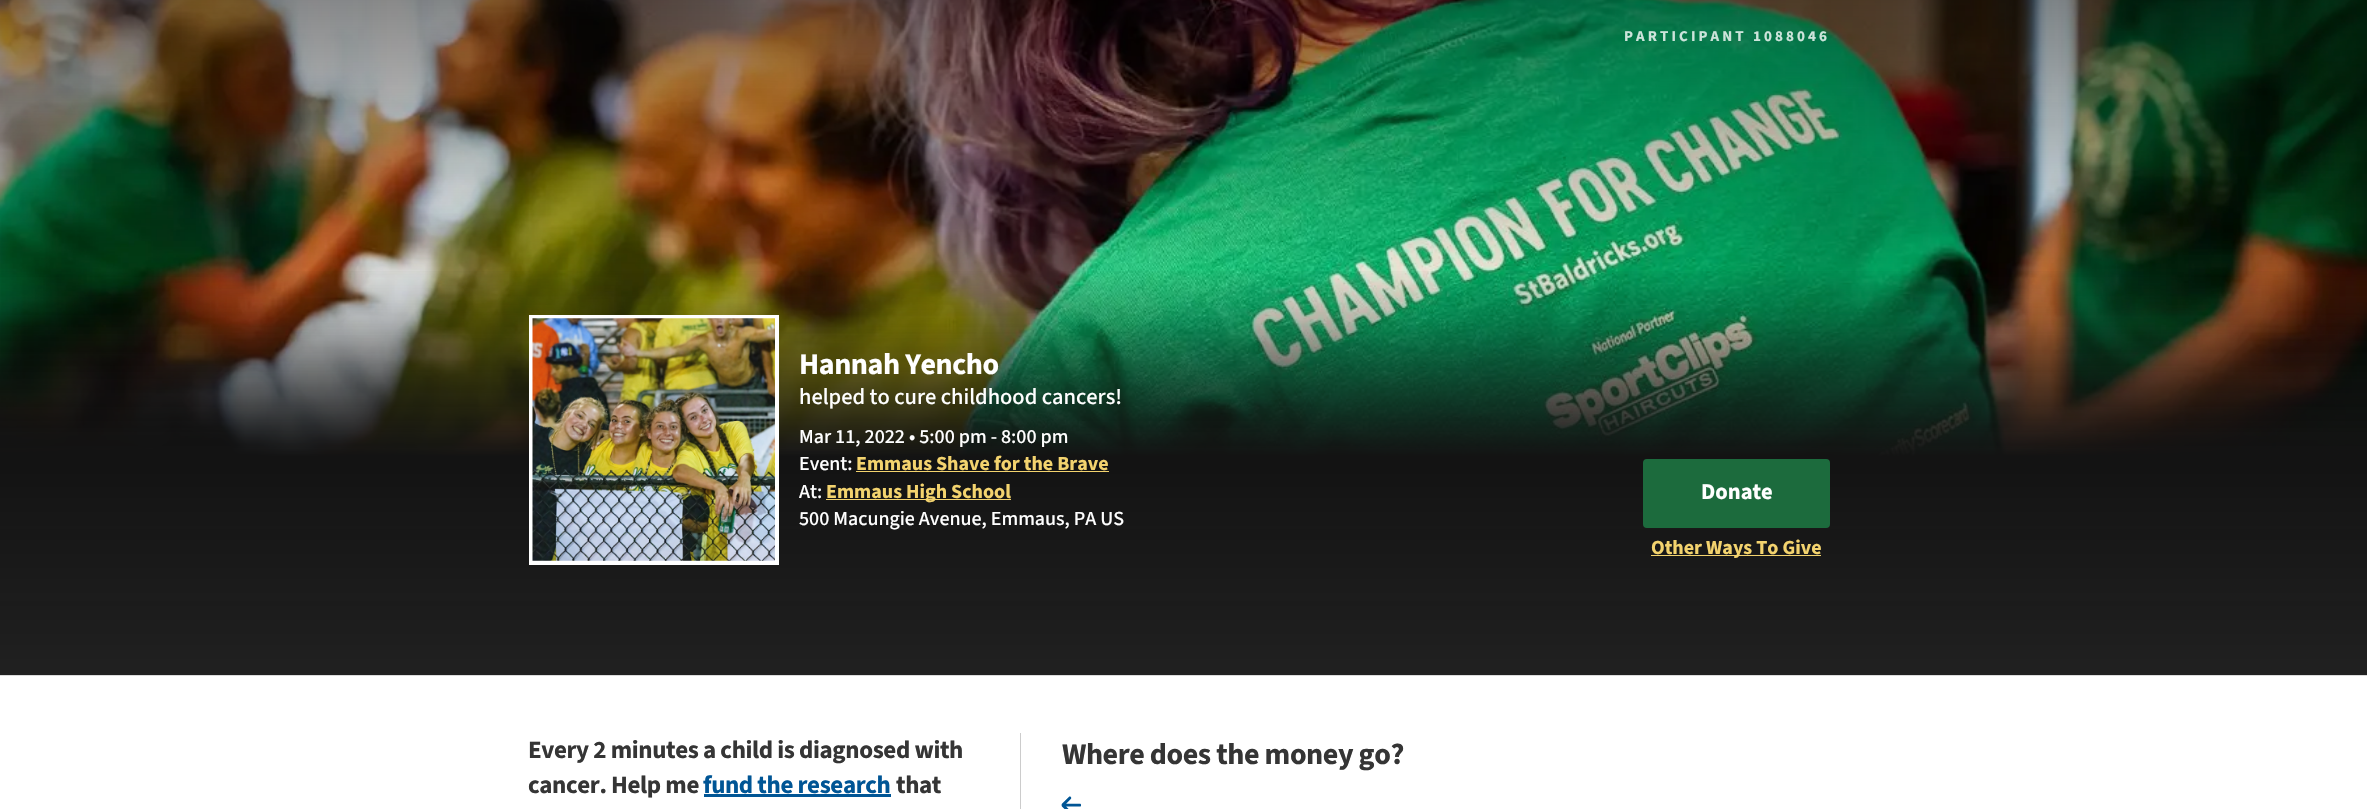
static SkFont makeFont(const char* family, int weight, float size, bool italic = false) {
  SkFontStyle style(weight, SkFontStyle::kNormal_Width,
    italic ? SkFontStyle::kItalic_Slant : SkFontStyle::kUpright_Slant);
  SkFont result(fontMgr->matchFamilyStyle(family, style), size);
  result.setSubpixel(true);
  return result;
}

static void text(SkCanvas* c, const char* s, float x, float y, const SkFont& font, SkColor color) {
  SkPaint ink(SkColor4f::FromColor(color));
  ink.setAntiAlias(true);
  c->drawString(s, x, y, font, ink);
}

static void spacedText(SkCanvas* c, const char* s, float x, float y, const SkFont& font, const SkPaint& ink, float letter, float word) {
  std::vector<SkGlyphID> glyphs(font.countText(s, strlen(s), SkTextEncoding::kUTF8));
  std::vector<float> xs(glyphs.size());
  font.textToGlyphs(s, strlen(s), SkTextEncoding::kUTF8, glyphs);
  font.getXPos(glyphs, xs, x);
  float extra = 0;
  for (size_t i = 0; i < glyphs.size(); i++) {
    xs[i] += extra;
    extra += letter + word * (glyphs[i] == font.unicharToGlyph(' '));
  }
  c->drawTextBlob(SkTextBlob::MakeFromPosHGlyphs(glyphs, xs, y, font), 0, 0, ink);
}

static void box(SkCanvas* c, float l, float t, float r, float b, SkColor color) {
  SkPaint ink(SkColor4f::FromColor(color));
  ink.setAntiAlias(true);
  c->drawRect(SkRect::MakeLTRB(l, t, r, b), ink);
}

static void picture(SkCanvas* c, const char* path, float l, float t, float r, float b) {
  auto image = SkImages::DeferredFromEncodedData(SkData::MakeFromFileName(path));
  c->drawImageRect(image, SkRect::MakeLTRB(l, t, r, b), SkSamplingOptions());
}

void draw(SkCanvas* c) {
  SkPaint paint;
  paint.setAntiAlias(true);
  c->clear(0xffffffff);
  picture(c, "img_01.png", 0, 0, 2367, 456);
  box(c, 0, 675, 2367, 676, 0xffdbdbdb);
  {
    const SkColor colors[] = {0x000a0a0a, 0x000a0a0a, 0xff0a0a0a, 0xff0a0a0a};
    const float stops[] = {0.01f, 0.42f, 0.69f, 1};
    const SkPoint ends[] = {{1184, -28}, {1184, 675}};
    paint.setShader(SkGradientShader::MakeLinear(ends, colors, stops, 4, SkTileMode::kClamp));
    paint.setAlpha(255);
  }
  c->drawRect(SkRect::MakeLTRB(0, 271, 2367, 675), paint);
  {
    const SkColor colors[] = {0x80000000, 0x00000000, 0x00353535, 0xff353535};
    const float stops[] = {0, 0.33f, 0.33f, 1};
    const SkPoint ends[] = {{1184, -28}, {1184, 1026}};
    paint.setShader(SkGradientShader::MakeLinear(ends, colors, stops, 4, SkTileMode::kClamp));
    paint.setAlpha(255);
  }
  c->drawRect(SkRect::MakeLTRB(0, 0, 2367, 675), paint);
  SkFont face1 = makeFont("Source Sans 3", 700, 15);
  paint.setShader(nullptr);
  paint.setColor(0xffcde4db);
  spacedText(c, "PARTICIPANT 1088046", 1624, 41, face1, paint, 3.1f, 0);
  box(c, 529, 315, 779, 565, 0xffffffff);
  picture(c, "img_02.png", 532, 318, 775, 561);
  SkFont face2 = makeFont("Source Sans 3", 700, 30);
  paint.setColor(0xffffffff);
  spacedText(c, "Hannah Yencho", 799, 374, face2, paint, -0.45f, 0);
  SkFont face3 = makeFont("Source Sans 3", 500, 22.5f);
  text(c, "helped to cure childhood cancers!", 799, 404, face3, 0xffffffff);
  SkFont face4 = makeFont("Source Sans 3", 500, 20);
  text(c, "Mar 11, 2022 • 5:00 pm - 8:00 pm", 799, 443, face4, 0xffffffff);
  text(c, "Event:", 799, 470, face4, 0xffffffff);
  SkFont face5 = makeFont("Source Sans 3", 700, 20);
  text(c, "Emmaus Shave for the Brave", 856, 470, face5, 0xfff3d36e);
  box(c, 856, 471, 1109, 472, 0xfff3d36e);
  text(c, "At:", 799, 498, face4, 0xffffffff);
  box(c, 826, 499, 1011, 500, 0xfff3d36e);
  text(c, "Emmaus High School", 826, 498, face5, 0xfff3d36e);
  text(c, "500 Macungie Avenue, Emmaus, PA US", 799, 525, face4, 0xffffffff);
  paint.setColor(0xff1c6b3d);
  c->drawRoundRect(SkRect::MakeLTRB(1644.5f, 460.5f, 1828.5f, 526.5f), 2.5f, 2.5f, paint);
  paint.setStyle(SkPaint::kStroke_Style);
  paint.setStrokeWidth(3);
  c->drawRoundRect(SkRect::MakeLTRB(1644.5f, 460.5f, 1828.5f, 526.5f), 2.5f, 2.5f, paint);
  SkFont face6 = makeFont("Source Sans 3", 700, 22.5f);
  text(c, "Donate", 1701, 499, face6, 0xffffffff);
  box(c, 1651, 555, 1821, 556, 0xfff3d36e);
  text(c, "Other Ways To Give", 1651, 554, face5, 0xfff3d36e);
  SkFont face7 = makeFont("Source Sans 3", 700, 25);
  paint.setStyle(SkPaint::kFill_Style);
  paint.setColor(0xff353535);
  spacedText(c, "Every 2 minutes a child is diagnosed with", 528, 758, face7, paint, -0.4f, 0);
  spacedText(c, "cancer. Help me", 528, 793, face7, paint, -0.4f, 0);
  paint.setColor(0xff005595);
  spacedText(c, "fund the research", 703, 793, face7, paint, -0.4f, 0);
  box(c, 704, 794, 891, 797, 0xff005595);
  paint.setColor(0xff353535);
  spacedText(c, "that", 896, 793, face7, paint, -0.4f, 0);
  paint.setColor(0xffcccccc);
  c->drawPath(SkPathBuilder().moveTo(1020, 733).lineTo(1020, 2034).lineTo(1858, 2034).lineTo(1021, 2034).lineTo(1021, 733).close().detach(), paint);
  paint.setColor(0xff353535);
  spacedText(c, "Where does the money go?", 1062, 764, face2, paint, -0.45f, 0);
  picture(c, "img_03.png", 1061, 796, 1081, 809);
}
